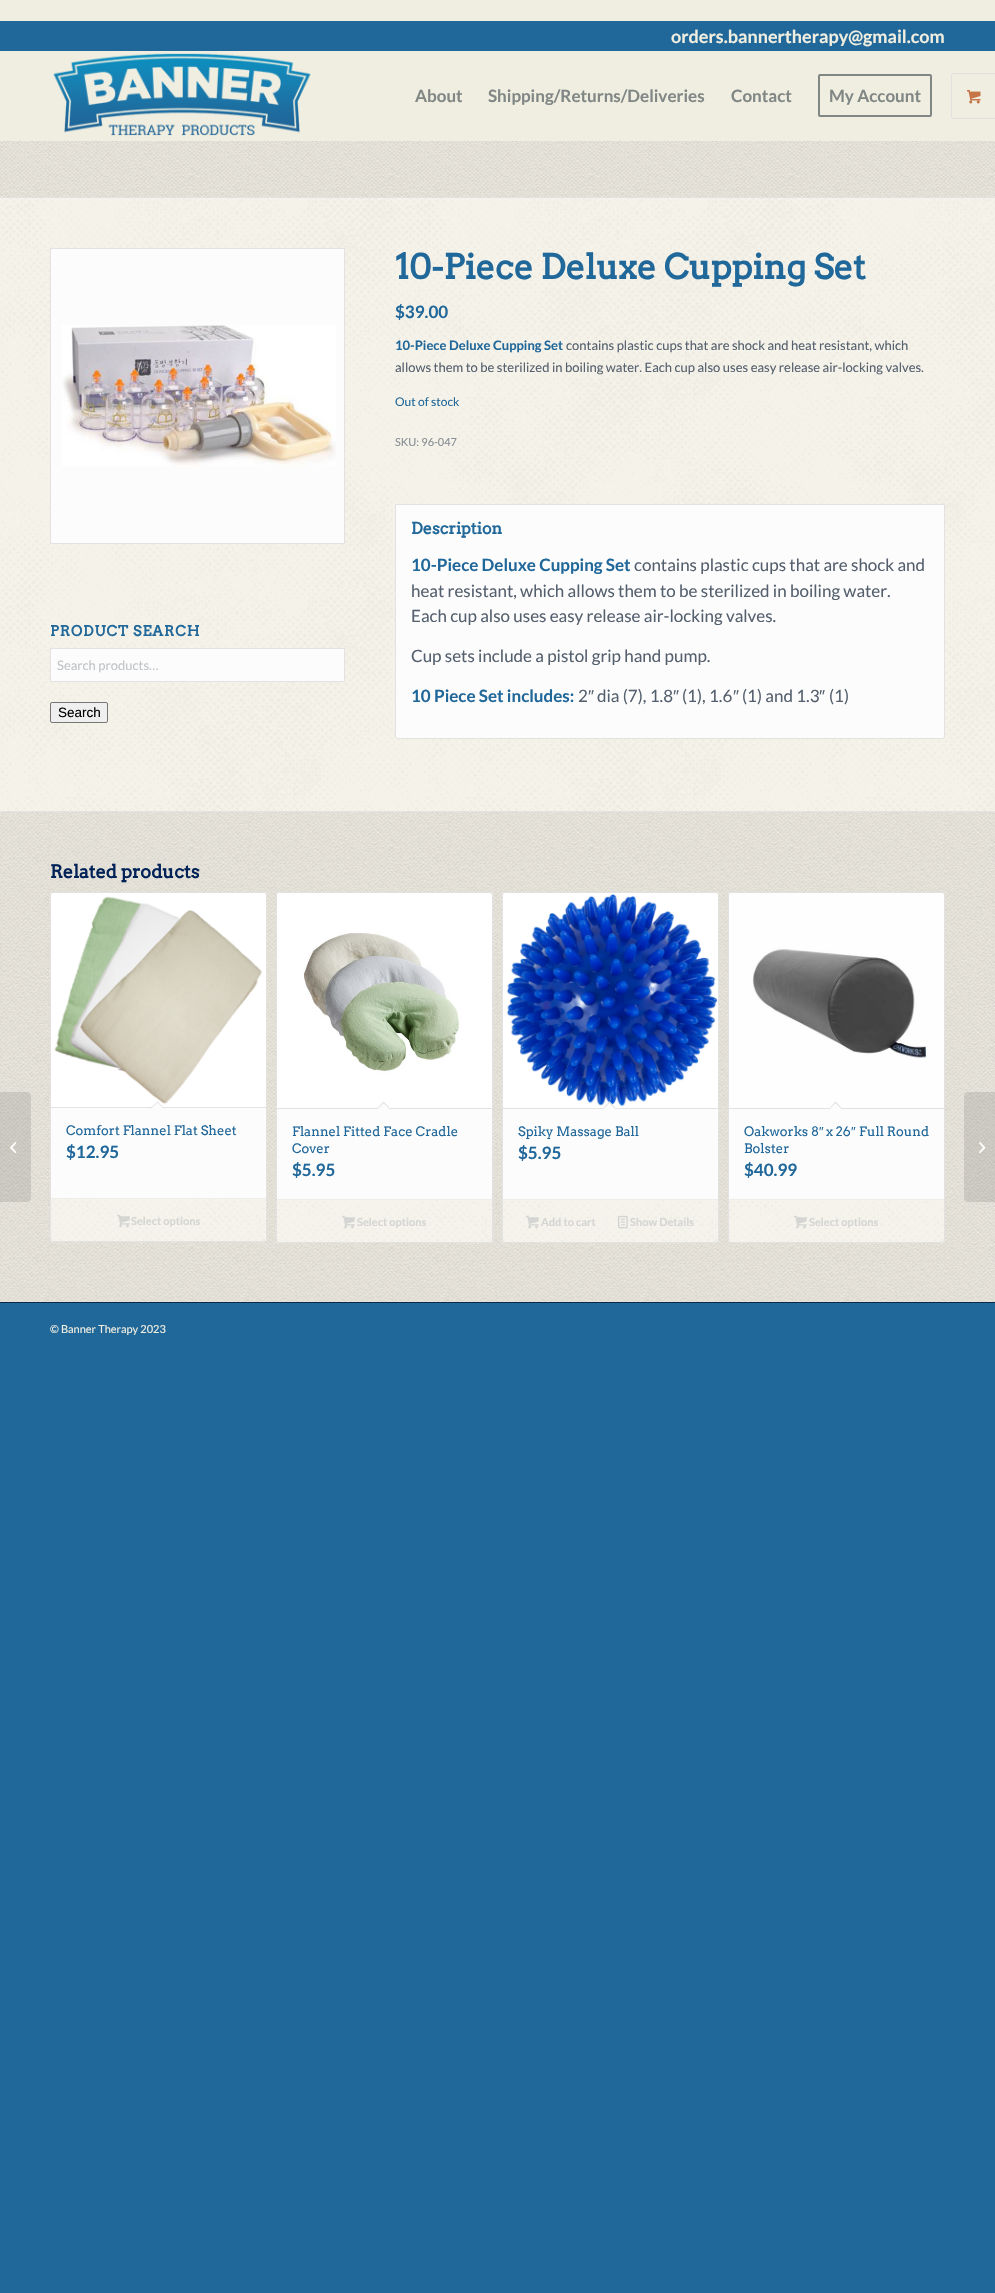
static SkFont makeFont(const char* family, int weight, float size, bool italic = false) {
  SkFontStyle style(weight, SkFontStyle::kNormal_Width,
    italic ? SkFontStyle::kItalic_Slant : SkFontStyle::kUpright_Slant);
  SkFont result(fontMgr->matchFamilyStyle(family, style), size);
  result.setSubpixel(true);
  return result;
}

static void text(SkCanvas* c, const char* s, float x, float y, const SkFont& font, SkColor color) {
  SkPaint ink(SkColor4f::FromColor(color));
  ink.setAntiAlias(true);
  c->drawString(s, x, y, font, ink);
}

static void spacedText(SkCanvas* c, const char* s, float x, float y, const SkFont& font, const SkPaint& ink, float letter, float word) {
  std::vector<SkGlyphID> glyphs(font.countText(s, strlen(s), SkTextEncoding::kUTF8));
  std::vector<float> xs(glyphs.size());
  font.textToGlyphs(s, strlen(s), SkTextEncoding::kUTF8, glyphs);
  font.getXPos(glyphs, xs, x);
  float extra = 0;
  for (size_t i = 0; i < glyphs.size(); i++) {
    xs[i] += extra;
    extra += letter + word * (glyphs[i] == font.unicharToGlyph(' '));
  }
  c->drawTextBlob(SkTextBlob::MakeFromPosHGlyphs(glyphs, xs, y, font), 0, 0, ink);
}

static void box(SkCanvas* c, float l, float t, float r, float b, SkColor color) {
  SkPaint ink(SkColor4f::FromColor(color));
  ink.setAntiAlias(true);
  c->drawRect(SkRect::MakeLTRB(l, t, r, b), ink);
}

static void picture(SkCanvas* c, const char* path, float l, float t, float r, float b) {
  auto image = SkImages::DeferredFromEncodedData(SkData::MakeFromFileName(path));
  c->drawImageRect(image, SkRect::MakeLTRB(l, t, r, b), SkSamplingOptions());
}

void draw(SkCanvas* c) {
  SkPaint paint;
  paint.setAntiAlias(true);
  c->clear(0xff20679a);
  box(c, 0, 0, 995, 141, 0xffefeee0);
  box(c, 0, 21, 995, 51, 0xff20679a);
  SkFont face1 = makeFont("Lato", 700, 18);
  text(c, "orders.bannertherapy@gmail.com", 671, 43, face1, 0xffefeee0);
  picture(c, "img_01.png", 53, 53, 311, 136);
  SkFont face2 = makeFont("Lato", 700, 17);
  text(c, "About", 415, 102, face2, 0xff808785);
  text(c, "Shipping/Returns/Deliveries", 488, 102, face2, 0xff808785);
  text(c, "Contact", 731, 102, face2, 0xff808785);
  paint.setStyle(SkPaint::kStroke_Style);
  paint.setStrokeWidth(2);
  paint.setColor(0xff808785);
  c->drawRoundRect(SkRect::MakeLTRB(819, 75, 931, 116), 1, 1, paint);
  text(c, "My Account", 829, 102, face2, 0xff808785);
  paint.setStrokeWidth(1);
  paint.setColor(0xffe1e1e1);
  c->drawRoundRect(SkRect::MakeLTRB(951.5f, 73.5f, 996.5f, 118.5f), 1.5f, 1.5f, paint);
  box(c, 952, 74, 953, 118, 0xffefeee0);
  picture(c, "img_02.png", 967, 90, 981, 104);
  picture(c, "img_07.png", 0, 812, 995, 1302);
  paint.setStyle(SkPaint::kFill_Style);
  paint.setColor(0x1a000000);
  c->drawPath(SkPathBuilder().moveTo(0, 1092).lineTo(27, 1092).cubicTo(29, 1092, 31, 1094, 31, 1096).lineTo(31, 1198).cubicTo(31, 1200, 29, 1202, 27, 1202).lineTo(0, 1202).close().detach(), paint);
  picture(c, "img_03.png", 10, 1142, 17, 1153);
  picture(c, "img_04.png", 0, 141, 995, 197);
  picture(c, "img_05.png", 0, 198, 995, 811);
  box(c, 0, 197, 995, 198, 0xffe2e2e2);
  paint.setColor(0xfffcfcfc);
  c->drawRect(SkRect::MakeLTRB(50.5f, 248.5f, 344.5f, 543.5f), paint);
  paint.setStyle(SkPaint::kStroke_Style);
  paint.setColor(0xffe2e2e2);
  c->drawRect(SkRect::MakeLTRB(50.5f, 248.5f, 344.5f, 543.5f), paint);
  picture(c, "img_06.png", 62, 325, 336, 466);
  SkFont face3 = makeFont("Arvo", 700, 14.25f);
  paint.setStyle(SkPaint::kFill_Style);
  paint.setColor(0xff20679a);
  spacedText(c, "PRODUCT SEARCH", 50, 636, face3, paint, 1, 0);
  paint.setColor(0xfffcfcfc);
  c->drawRect(SkRect::MakeLTRB(50.5f, 648.5f, 344.5f, 681.5f), paint);
  paint.setStyle(SkPaint::kStroke_Style);
  paint.setColor(0xffe2e2e2);
  c->drawRect(SkRect::MakeLTRB(50.5f, 648.5f, 344.5f, 681.5f), paint);
  SkFont face4 = makeFont("Lato", 400, 13);
  text(c, "Search products…", 57, 670, face4, 0xffc2c5c8);
  paint.setStyle(SkPaint::kFill_Style);
  paint.setColor(0xffefefef);
  c->drawRoundRect(SkRect::MakeLTRB(50.5f, 702.5f, 107.5f, 722.5f), 1.5f, 1.5f, paint);
  paint.setStyle(SkPaint::kStroke_Style);
  paint.setColor(0xff767676);
  c->drawRoundRect(SkRect::MakeLTRB(50.5f, 702.5f, 107.5f, 722.5f), 1.5f, 1.5f, paint);
  SkFont face5 = makeFont("Liberation Sans", 400, 13.5f);
  text(c, "Search", 58, 717, face5, 0xff000000);
  SkFont face6 = makeFont("Arvo", 700, 34);
  text(c, "10-Piece Deluxe Cupping Set", 395, 279, face6, 0xff20679a);
  text(c, "$39.00", 395, 318, face2, 0xff20679a);
  SkFont face7 = makeFont("Lato", 700, 13);
  text(c, "10-Piece Deluxe Cupping Set", 395, 350, face7, 0xff20679a);
  text(c, "contains plastic cups that are shock and heat resistant, which", 566, 350, face4, 0xff55606e);
  text(c, "allows them to be sterilized in boiling water. Each cup also uses easy release air-locking valves.", 395, 372, face4, 0xff55606e);
  SkFont face8 = makeFont("Lato", 400, 12);
  text(c, "Out of stock", 395, 406, face8, 0xff20679a);
  SkFont face9 = makeFont("Lato", 400, 11);
  text(c, "SKU: 96-047", 395, 446, face9, 0xff878e93);
  paint.setStyle(SkPaint::kFill_Style);
  paint.setColor(0xfffcfcfc);
  c->drawPath(SkPathBuilder().moveTo(395.5f, 504.5f).lineTo(944.5f, 504.5f).lineTo(944.5f, 736).cubicTo(944.5f, 737.5f, 943.5f, 738.5f, 942, 738.5f).lineTo(398, 738.5f).cubicTo(396.5f, 738.5f, 395.5f, 737.5f, 395.5f, 736).close().detach(), paint);
  paint.setStyle(SkPaint::kStroke_Style);
  paint.setColor(0xffe2e2e2);
  c->drawPath(SkPathBuilder().moveTo(395.5f, 504.5f).lineTo(944.5f, 504.5f).lineTo(944.5f, 736).cubicTo(944.5f, 737.5f, 943.5f, 738.5f, 942, 738.5f).lineTo(398, 738.5f).cubicTo(396.5f, 738.5f, 395.5f, 737.5f, 395.5f, 736).close().detach(), paint);
  SkFont face10 = makeFont("Arvo", 700, 16);
  text(c, "Description", 411, 534, face10, 0xff20679a);
  text(c, "10-Piece Deluxe Cupping Set", 411, 571, face2, 0xff20679a);
  SkFont face11 = makeFont("Lato", 400, 17);
  text(c, "contains plastic cups that are shock and", 634, 571, face11, 0xff55606e);
  text(c, "heat resistant, which allows them to be sterilized in boiling water.", 411, 597, face11, 0xff55606e);
  text(c, "Each cup also uses easy release air-locking valves.", 411, 622, face11, 0xff55606e);
  text(c, "Cup sets include a pistol grip hand pump.", 411, 662, face11, 0xff55606e);
  text(c, "10 Piece Set includes:", 411, 702, face2, 0xff20679a);
  text(c, "2", 578, 702, face11, 0xff55606e);
  SkFont face12 = makeFont("Liberation Sans", 400, 17);
  text(c, "″", 588, 702, face12, 0xff55606e);
  text(c, "dia (7), 1.8", 597, 702, face11, 0xff55606e);
  text(c, "″", 673, 702, face12, 0xff55606e);
  text(c, "(1), 1.6", 682, 702, face11, 0xff55606e);
  text(c, "″", 733, 702, face12, 0xff55606e);
  text(c, "(1) and 1.3", 742, 702, face11, 0xff55606e);
  text(c, "″", 819, 702, face12, 0xff55606e);
  text(c, "(1)", 829, 702, face11, 0xff55606e);
  box(c, 0, 811, 995, 812, 0xffe2e2e2);
  SkFont face13 = makeFont("Arvo", 700, 18);
  text(c, "Related products", 50, 878, face13, 0xff002256);
  picture(c, "img_08.png", 50, 892, 267, 1242);
  c->drawRoundRect(SkRect::MakeLTRB(50.5f, 892.5f, 266.5f, 1241.5f), 2.5f, 2.5f, paint);
  picture(c, "img_09.png", 51, 893, 266, 1107);
  paint.setStyle(SkPaint::kFill_Style);
  paint.setColor(0xfffcfcfc);
  c->drawPath(SkPathBuilder().moveTo(51, 1107).lineTo(266, 1107).lineTo(266, 1197).cubicTo(266, 1197.5f, 265.5f, 1198, 265, 1198).lineTo(52, 1198).cubicTo(51.5f, 1198, 51, 1197.5f, 51, 1197).close().detach(), paint);
  box(c, 51, 1107, 266, 1108, 0xffe2e2e2);
  c->drawPath(SkPathBuilder().moveTo(157.5f, 1101.5f).lineTo(164.5f, 1108.5f).lineTo(157.5f, 1115.5f).lineTo(150.5f, 1108.5f).close().detach(), paint);
  paint.setColor(0xffe2e2e2);
  c->drawPath(SkPathBuilder().moveTo(157.5f, 1101.5f).lineTo(164.5f, 1108.5f).lineTo(164, 1109).lineTo(157, 1102).close().detach(), paint);
  c->drawPath(SkPathBuilder().moveTo(157.5f, 1101.5f).lineTo(158, 1102).lineTo(151, 1109).lineTo(150.5f, 1108.5f).close().detach(), paint);
  SkFont face14 = makeFont("Arvo", 400, 13);
  text(c, "Comfort Flannel Flat Sheet", 66, 1135, face14, 0xff20679a);
  text(c, "$12.95", 66, 1158, face2, 0xff20679a);
  paint.setColor(0x33fcfcfc);
  c->drawPath(SkPathBuilder().moveTo(51, 1198).lineTo(266, 1198).lineTo(266, 1239).cubicTo(266, 1240, 265, 1241, 264, 1241).lineTo(53, 1241).cubicTo(52, 1241, 51, 1240, 51, 1239).close().detach(), paint);
  box(c, 51, 1198, 266, 1199, 0x33e2e2e2);
  picture(c, "img_10.png", 117, 1214, 130, 1228);
  SkFont face15 = makeFont("Lato", 700, 11);
  text(c, "Select options", 131, 1225, face15, 0xffd5d6d3);
  picture(c, "img_11.png", 276, 892, 493, 1243);
  paint.setStyle(SkPaint::kStroke_Style);
  paint.setColor(0xffe2e2e2);
  c->drawRoundRect(SkRect::MakeLTRB(276.5f, 892.5f, 492.5f, 1242.5f), 2.5f, 2.5f, paint);
  picture(c, "img_12.png", 277, 893, 492, 1108);
  paint.setStyle(SkPaint::kFill_Style);
  paint.setColor(0xfffcfcfc);
  c->drawPath(SkPathBuilder().moveTo(277, 1108).lineTo(492, 1108).lineTo(492, 1198).cubicTo(492, 1198.5f, 491.5f, 1199, 491, 1199).lineTo(278, 1199).cubicTo(277.5f, 1199, 277, 1198.5f, 277, 1198).close().detach(), paint);
  box(c, 277, 1108, 492, 1109, 0xffe2e2e2);
  c->drawPath(SkPathBuilder().moveTo(383.5f, 1101.5f).lineTo(390.5f, 1109).lineTo(383.5f, 1116).lineTo(376.5f, 1109).close().detach(), paint);
  paint.setColor(0xffe2e2e2);
  c->drawPath(SkPathBuilder().moveTo(383.5f, 1101.5f).lineTo(390.5f, 1109).lineTo(390, 1109.5f).lineTo(383, 1102.5f).close().detach(), paint);
  c->drawPath(SkPathBuilder().moveTo(383.5f, 1101.5f).lineTo(384, 1102.5f).lineTo(377, 1109.5f).lineTo(376.5f, 1109).close().detach(), paint);
  text(c, "Flannel Fitted Face Cradle", 292, 1136, face14, 0xff20679a);
  text(c, "Cover", 292, 1153, face14, 0xff20679a);
  text(c, "$5.95", 292, 1176, face2, 0xff20679a);
  paint.setColor(0x33fcfcfc);
  c->drawPath(SkPathBuilder().moveTo(277, 1199).lineTo(492, 1199).lineTo(492, 1240).cubicTo(492, 1241, 491, 1242, 490, 1242).lineTo(279, 1242).cubicTo(278, 1242, 277, 1241, 277, 1240).close().detach(), paint);
  box(c, 277, 1199, 492, 1200, 0x33e2e2e2);
  picture(c, "img_13.png", 342, 1215, 355, 1229);
  text(c, "Select options", 357, 1226, face15, 0xffd5d6d3);
  picture(c, "img_14.png", 502, 892, 719, 1243);
  paint.setStyle(SkPaint::kStroke_Style);
  paint.setColor(0xffe2e2e2);
  c->drawRoundRect(SkRect::MakeLTRB(502.5f, 892.5f, 718.5f, 1242.5f), 2.5f, 2.5f, paint);
  picture(c, "img_15.png", 503, 893, 718, 1108);
  paint.setStyle(SkPaint::kFill_Style);
  paint.setColor(0xfffcfcfc);
  c->drawPath(SkPathBuilder().moveTo(503, 1108).lineTo(718, 1108).lineTo(718, 1198).cubicTo(718, 1198.5f, 717.5f, 1199, 717, 1199).lineTo(504, 1199).cubicTo(503.5f, 1199, 503, 1198.5f, 503, 1198).close().detach(), paint);
  box(c, 503, 1108, 718, 1109, 0xffe2e2e2);
  c->drawPath(SkPathBuilder().moveTo(609.5f, 1101.5f).lineTo(616.5f, 1109).lineTo(609.5f, 1116).lineTo(602.5f, 1109).close().detach(), paint);
  paint.setColor(0xffe2e2e2);
  c->drawPath(SkPathBuilder().moveTo(609.5f, 1101.5f).lineTo(616.5f, 1109).lineTo(616, 1109.5f).lineTo(608.5f, 1102.5f).close().detach(), paint);
  c->drawPath(SkPathBuilder().moveTo(609.5f, 1101.5f).lineTo(610, 1102.5f).lineTo(603, 1109.5f).lineTo(602.5f, 1109).close().detach(), paint);
  text(c, "Spiky Massage Ball", 518, 1136, face14, 0xff20679a);
  text(c, "$5.95", 518, 1159, face2, 0xff20679a);
  paint.setColor(0x33fcfcfc);
  c->drawPath(SkPathBuilder().moveTo(503, 1199).lineTo(718, 1199).lineTo(718, 1240).cubicTo(718, 1241, 717, 1242, 716, 1242).lineTo(505, 1242).cubicTo(504, 1242, 503, 1241, 503, 1240).close().detach(), paint);
  box(c, 503, 1199, 718, 1200, 0x33e2e2e2);
  picture(c, "img_16.png", 526, 1215, 539, 1229);
  text(c, "Add to cart", 541, 1226, face15, 0xffd5d6d3);
  box(c, 606, 1215, 607, 1229, 0x33e2e2e2);
  picture(c, "img_17.png", 618, 1215, 628, 1229);
  text(c, "Show Details", 630, 1226, face15, 0xffd5d6d3);
  picture(c, "img_18.png", 728, 892, 945, 1243);
  paint.setStyle(SkPaint::kStroke_Style);
  paint.setColor(0xffe2e2e2);
  c->drawRoundRect(SkRect::MakeLTRB(728.5f, 892.5f, 944.5f, 1242.5f), 2.5f, 2.5f, paint);
  picture(c, "img_19.png", 729, 893, 944, 1108);
  paint.setStyle(SkPaint::kFill_Style);
  paint.setColor(0xfffcfcfc);
  c->drawPath(SkPathBuilder().moveTo(729, 1108).lineTo(944, 1108).lineTo(944, 1198).cubicTo(944, 1198.5f, 943.5f, 1199, 943, 1199).lineTo(730, 1199).cubicTo(729.5f, 1199, 729, 1198.5f, 729, 1198).close().detach(), paint);
  box(c, 729, 1108, 944, 1109, 0xffe2e2e2);
  c->drawPath(SkPathBuilder().moveTo(835.5f, 1101.5f).lineTo(842.5f, 1109).lineTo(835.5f, 1116).lineTo(828.5f, 1109).close().detach(), paint);
  paint.setColor(0xffe2e2e2);
  c->drawPath(SkPathBuilder().moveTo(835.5f, 1101.5f).lineTo(842.5f, 1109).lineTo(842, 1109.5f).lineTo(834.5f, 1102.5f).close().detach(), paint);
  c->drawPath(SkPathBuilder().moveTo(835.5f, 1101.5f).lineTo(836, 1102.5f).lineTo(829, 1109.5f).lineTo(828.5f, 1109).close().detach(), paint);
  text(c, "Oakworks 8", 744, 1136, face14, 0xff20679a);
  SkFont face16 = makeFont("Liberation Sans", 400, 13);
  text(c, "″", 819, 1136, face16, 0xff20679a);
  text(c, "x 26", 826, 1136, face14, 0xff20679a);
  text(c, "″", 851, 1136, face16, 0xff20679a);
  text(c, "Full Round", 859, 1136, face14, 0xff20679a);
  text(c, "Bolster", 744, 1153, face14, 0xff20679a);
  text(c, "$40.99", 744, 1176, face2, 0xff20679a);
  paint.setColor(0x33fcfcfc);
  c->drawPath(SkPathBuilder().moveTo(729, 1199).lineTo(944, 1199).lineTo(944, 1240).cubicTo(944, 1241, 943, 1242, 942, 1242).lineTo(731, 1242).cubicTo(730, 1242, 729, 1241, 729, 1240).close().detach(), paint);
  box(c, 729, 1199, 944, 1200, 0x33e2e2e2);
  picture(c, "img_13.png", 794, 1215, 807, 1229);
  text(c, "Select options", 809, 1226, face15, 0xffd5d6d3);
  box(c, 0, 1302, 995, 1303, 0xff0b294d);
  text(c, "© Banner Therapy 2023", 50, 1333, face9, 0xffefeee0);
  paint.setColor(0x1a000000);
  c->drawPath(SkPathBuilder().moveTo(968, 1092).lineTo(995, 1092).lineTo(995, 1202).lineTo(968, 1202).cubicTo(966, 1202, 964, 1200, 964, 1198).lineTo(964, 1096).cubicTo(964, 1094, 966, 1092, 968, 1092).close().detach(), paint);
  picture(c, "img_20.png", 979, 1142, 986, 1153);
}
